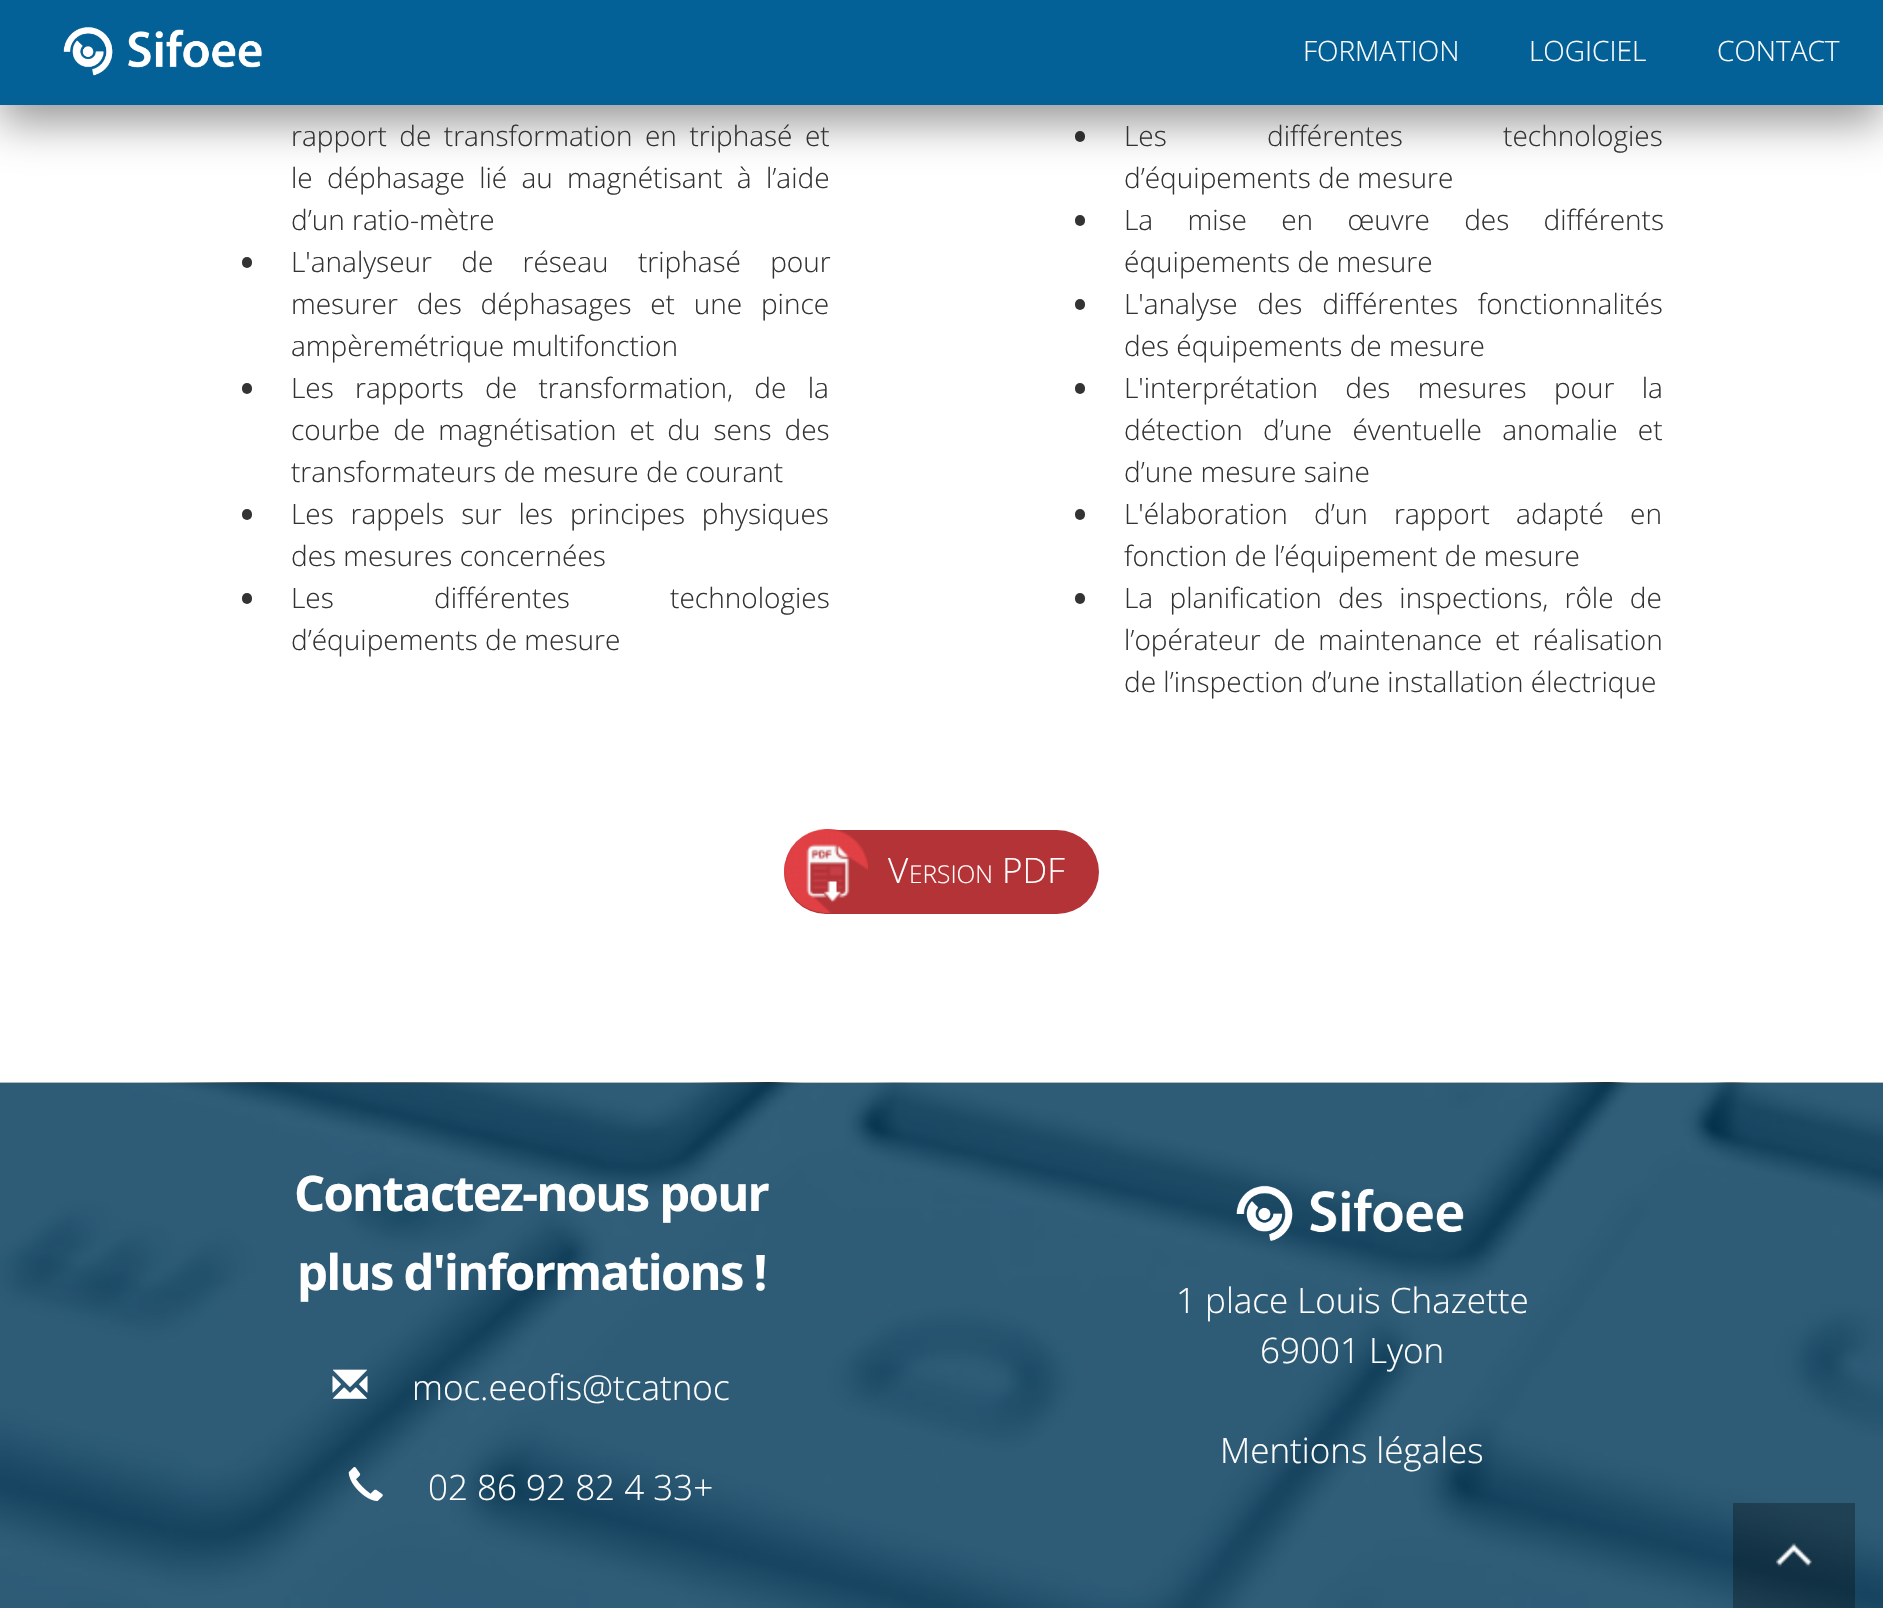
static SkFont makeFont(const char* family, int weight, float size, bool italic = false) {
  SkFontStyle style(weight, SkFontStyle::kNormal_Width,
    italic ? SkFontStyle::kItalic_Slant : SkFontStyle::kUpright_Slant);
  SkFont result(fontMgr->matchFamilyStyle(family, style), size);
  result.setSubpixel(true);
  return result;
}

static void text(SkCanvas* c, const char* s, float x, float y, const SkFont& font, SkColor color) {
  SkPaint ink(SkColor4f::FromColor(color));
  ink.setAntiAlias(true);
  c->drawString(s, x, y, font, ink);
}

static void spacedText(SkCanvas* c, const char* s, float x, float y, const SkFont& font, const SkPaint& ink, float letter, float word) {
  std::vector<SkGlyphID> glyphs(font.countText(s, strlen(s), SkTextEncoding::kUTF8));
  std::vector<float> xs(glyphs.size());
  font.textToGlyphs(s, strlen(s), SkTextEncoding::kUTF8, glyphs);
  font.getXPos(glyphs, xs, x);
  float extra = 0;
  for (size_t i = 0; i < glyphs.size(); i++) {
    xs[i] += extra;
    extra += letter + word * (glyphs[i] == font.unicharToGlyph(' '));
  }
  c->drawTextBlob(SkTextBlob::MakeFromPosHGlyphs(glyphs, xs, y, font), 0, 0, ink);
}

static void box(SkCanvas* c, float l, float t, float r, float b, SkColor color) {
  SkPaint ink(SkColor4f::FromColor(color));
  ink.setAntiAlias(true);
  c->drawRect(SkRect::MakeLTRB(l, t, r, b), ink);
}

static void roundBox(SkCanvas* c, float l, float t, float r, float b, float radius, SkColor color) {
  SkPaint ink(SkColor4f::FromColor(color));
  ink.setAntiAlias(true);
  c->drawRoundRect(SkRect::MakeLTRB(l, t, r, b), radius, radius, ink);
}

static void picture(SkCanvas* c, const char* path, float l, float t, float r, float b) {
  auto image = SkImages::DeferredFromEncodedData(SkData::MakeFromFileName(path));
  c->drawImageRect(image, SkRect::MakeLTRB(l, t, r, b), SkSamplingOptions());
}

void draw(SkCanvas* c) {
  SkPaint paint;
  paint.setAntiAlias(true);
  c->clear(0xffffffff);
  roundBox(c, 1075, 131, 1085, 142, 5, 0xff333333);
  paint.setColor(0x66000000);
  paint.setMaskFilter(SkMaskFilter::MakeBlur(kNormal_SkBlurStyle, 22));
  c->drawRect(SkRect::MakeLTRB(0, 18, 1883, 123), paint);
  paint.setMaskFilter(nullptr);
  box(c, 0, 0, 1883, 105, 0xff046197);
  picture(c, "img_01.png", 63, 27, 262, 76);
  SkFont face1 = makeFont("Open Sans", 300, 28);
  text(c, "FORMATION", 1303, 61, face1, 0xffffffff);
  text(c, "LOGICIEL", 1529, 61, face1, 0xffffffff);
  text(c, "CONTACT", 1717, 61, face1, 0xffffffff);
  paint.setColor(0xff333333);
  spacedText(c, "rapport de transformation en triphasé et", 291, 146, face1, paint, 0, 5.25f);
  spacedText(c, "le déphasage lié au magnétisant à l’aide", 291, 188, face1, paint, 0, 7);
  text(c, "d’un ratio-mètre", 291, 230, face1, 0xff333333);
  roundBox(c, 242, 257, 252, 268, 5, 0xff333333);
  spacedText(c, "L'analyseur de réseau triphasé pour", 291, 272, face1, paint, 0, 22);
  spacedText(c, "mesurer des déphasages et une pince", 291, 314, face1, paint, 0, 11.5f);
  text(c, "ampèremétrique multifonction", 291, 356, face1, 0xff333333);
  roundBox(c, 242, 383, 252, 394, 5, 0xff333333);
  spacedText(c, "Les rapports de transformation, de la", 291, 398, face1, paint, 0, 14);
  spacedText(c, "courbe de magnétisation et du sens des", 291, 440, face1, paint, 0, 5.75f);
  text(c, "transformateurs de mesure de courant", 291, 482, face1, 0xff333333);
  roundBox(c, 242, 509, 252, 520, 5, 0xff333333);
  spacedText(c, "Les rappels sur les principes physiques", 291, 524, face1, paint, 0, 9.5f);
  text(c, "des mesures concernées", 291, 566, face1, 0xff333333);
  roundBox(c, 242, 593, 252, 604, 5, 0xff333333);
  spacedText(c, "Les différentes technologies", 291, 608, face1, paint, 0, 93);
  text(c, "d’équipements de mesure", 291, 650, face1, 0xff333333);
  spacedText(c, "Les différentes technologies", 1124, 146, face1, paint, 0, 93);
  text(c, "d’équipements de mesure", 1124, 188, face1, 0xff333333);
  roundBox(c, 1075, 215, 1085, 226, 5, 0xff333333);
  spacedText(c, "La mise en œuvre des différents", 1124, 230, face1, paint, 0, 27);
  text(c, "équipements de mesure", 1124, 272, face1, 0xff333333);
  roundBox(c, 1075, 299, 1085, 310, 5, 0xff333333);
  spacedText(c, "L'analyse des différentes fonctionnalités", 1124, 314, face1, paint, 0, 12.5f);
  text(c, "des équipements de mesure", 1124, 356, face1, 0xff333333);
  roundBox(c, 1075, 383, 1085, 394, 5, 0xff333333);
  spacedText(c, "L'interprétation des mesures pour la", 1124, 398, face1, paint, 0, 20);
  spacedText(c, "détection d’une éventuelle anomalie et", 1124, 440, face1, paint, 0, 13);
  text(c, "d’une mesure saine", 1124, 482, face1, 0xff333333);
  roundBox(c, 1075, 509, 1085, 520, 5, 0xff333333);
  spacedText(c, "L'élaboration d’un rapport adapté en", 1124, 524, face1, paint, 0, 19);
  text(c, "fonction de l’équipement de mesure", 1124, 566, face1, 0xff333333);
  roundBox(c, 1075, 593, 1085, 604, 5, 0xff333333);
  spacedText(c, "La planification des inspections, rôle de", 1124, 608, face1, paint, 0, 9);
  spacedText(c, "l’opérateur de maintenance et réalisation", 1124, 650, face1, paint, 0, 5.5f);
  text(c, "de l’inspection d’une installation électrique", 1124, 692, face1, 0xff333333);
  roundBox(c, 784, 830, 1099, 914, 42, 0xffb43337);
  picture(c, "img_02.png", 784, 829, 868, 913);
  SkFont face2 = makeFont("Open Sans", 300, 35);
  text(c, "V", 888, 883, face2, 0xffffffff);
  SkFont face3 = makeFont("Open Sans", 300, 24.5f);
  text(c, "ERSION", 909, 883, face3, 0xffffffff);
  text(c, "PDF", 1002, 883, face2, 0xffffffff);
  picture(c, "img_03.png", 0, 1082, 1883, 1608);
  SkFont face4 = makeFont("Open Sans", 700, 49);
  paint.setColor(0xffffffff);
  spacedText(c, "Contactez-nous pour", 294, 1211, face4, paint, -1.75f, 0);
  spacedText(c, "plus d'informations !", 297, 1290, face4, paint, -1.75f, 0);
  picture(c, "img_04.png", 332, 1369, 368, 1399);
  text(c, "moc.eeofis@tcatnoc", 412, 1400, face2, 0xffffffff);
  picture(c, "img_05.png", 348, 1467, 383, 1501);
  text(c, "02 86 92 82 4 33+", 428, 1500, face2, 0xffffffff);
  picture(c, "img_06.png", 1236, 1185, 1464, 1241);
  text(c, "1 place Louis Chazette", 1176, 1313, face2, 0xffffffff);
  text(c, "69001 Lyon", 1260, 1363, face2, 0xffffffff);
  text(c, "Mentions légales", 1220, 1463, face2, 0xffffffff);
  box(c, 1733, 1503, 1855, 1608, 0x4d000000);
  picture(c, "img_07.png", 1775, 1543, 1812, 1567);
}
